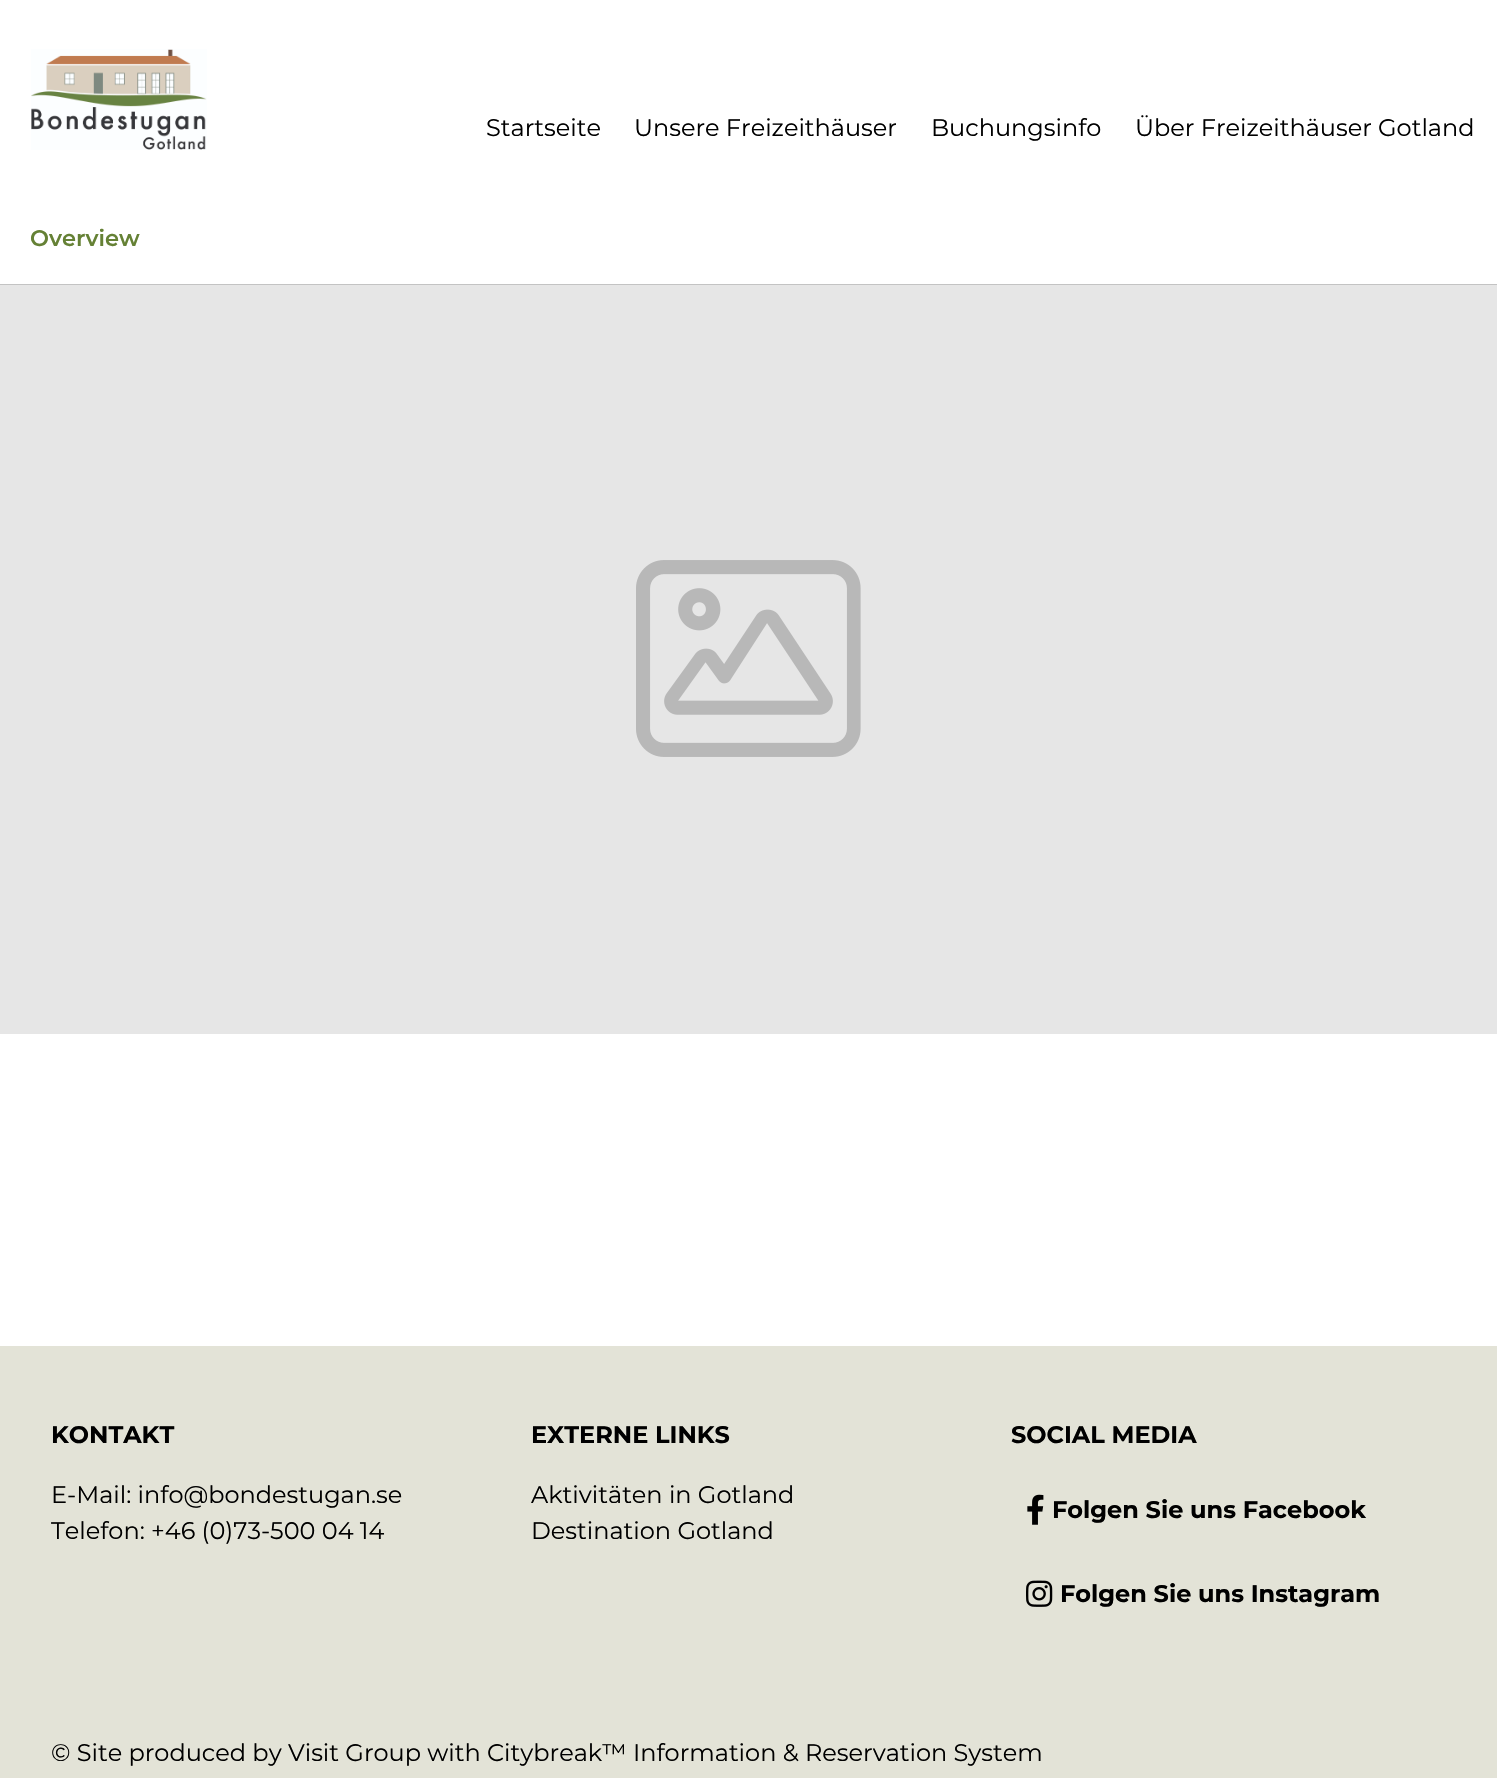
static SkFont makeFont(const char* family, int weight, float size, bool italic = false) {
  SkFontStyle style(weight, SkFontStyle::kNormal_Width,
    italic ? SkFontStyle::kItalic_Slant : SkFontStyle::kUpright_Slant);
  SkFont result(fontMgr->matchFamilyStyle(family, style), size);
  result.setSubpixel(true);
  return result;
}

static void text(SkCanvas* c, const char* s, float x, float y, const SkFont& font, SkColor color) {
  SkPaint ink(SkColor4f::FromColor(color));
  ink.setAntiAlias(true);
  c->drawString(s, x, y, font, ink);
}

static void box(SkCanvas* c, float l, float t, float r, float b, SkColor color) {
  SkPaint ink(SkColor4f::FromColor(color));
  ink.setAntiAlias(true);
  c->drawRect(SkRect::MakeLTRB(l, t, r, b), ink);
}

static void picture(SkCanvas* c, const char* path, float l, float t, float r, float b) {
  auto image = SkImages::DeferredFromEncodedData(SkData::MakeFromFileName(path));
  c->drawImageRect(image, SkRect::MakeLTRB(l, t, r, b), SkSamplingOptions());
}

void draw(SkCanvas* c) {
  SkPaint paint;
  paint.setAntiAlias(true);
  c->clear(0xffffffff);
  box(c, 0, 285, 1497, 1034, 0xffe6e6e6);
  picture(c, "img_01.png", 31, 49, 207, 150);
  SkFont face1 = makeFont("Montserrat", 400, 24);
  text(c, "Startseite", 486, 136, face1, 0xff000000);
  text(c, "Unsere Freizeithäuser", 634, 136, face1, 0xff000000);
  text(c, "Buchungsinfo", 931, 136, face1, 0xff000000);
  text(c, "Über Freizeithäuser Gotland", 1135, 136, face1, 0xff000000);
  box(c, 0, 284, 1497, 285, 0xffc3c3c3);
  SkFont face2 = makeFont("Montserrat", 600, 22.5f);
  text(c, "Overview", 30, 246, face2, 0xff658135);
  picture(c, "img_02.png", 636, 560, 861, 757);
  box(c, 0, 1346, 1497, 1778, 0xffe3e3d7);
  SkFont face3 = makeFont("Montserrat", 700, 24);
  text(c, "KONTAKT", 51, 1443, face3, 0xff000000);
  text(c, "E-Mail: info@bondestugan.se", 51, 1503, face1, 0xff000000);
  text(c, "Telefon: +46 (0)73-500 04 14", 51, 1539, face1, 0xff000000);
  text(c, "EXTERNE LINKS", 531, 1443, face3, 0xff000000);
  text(c, "Aktivitäten in Gotland", 531, 1503, face1, 0xff000000);
  text(c, "Destination Gotland", 531, 1539, face1, 0xff000000);
  text(c, "SOCIAL MEDIA", 1011, 1443, face3, 0xff000000);
  picture(c, "img_03.png", 1027, 1494, 1044, 1525);
  text(c, "Folgen Sie uns Facebook", 1052, 1518, face3, 0xff000000);
  picture(c, "img_04.png", 1026, 1580, 1053, 1607);
  text(c, "Folgen Sie uns Instagram", 1060, 1602, face3, 0xff000000);
  text(c, "© Site produced by Visit Group with Citybreak™ Information & Reservation System", 51, 1761, face1, 0xff000000);
}
